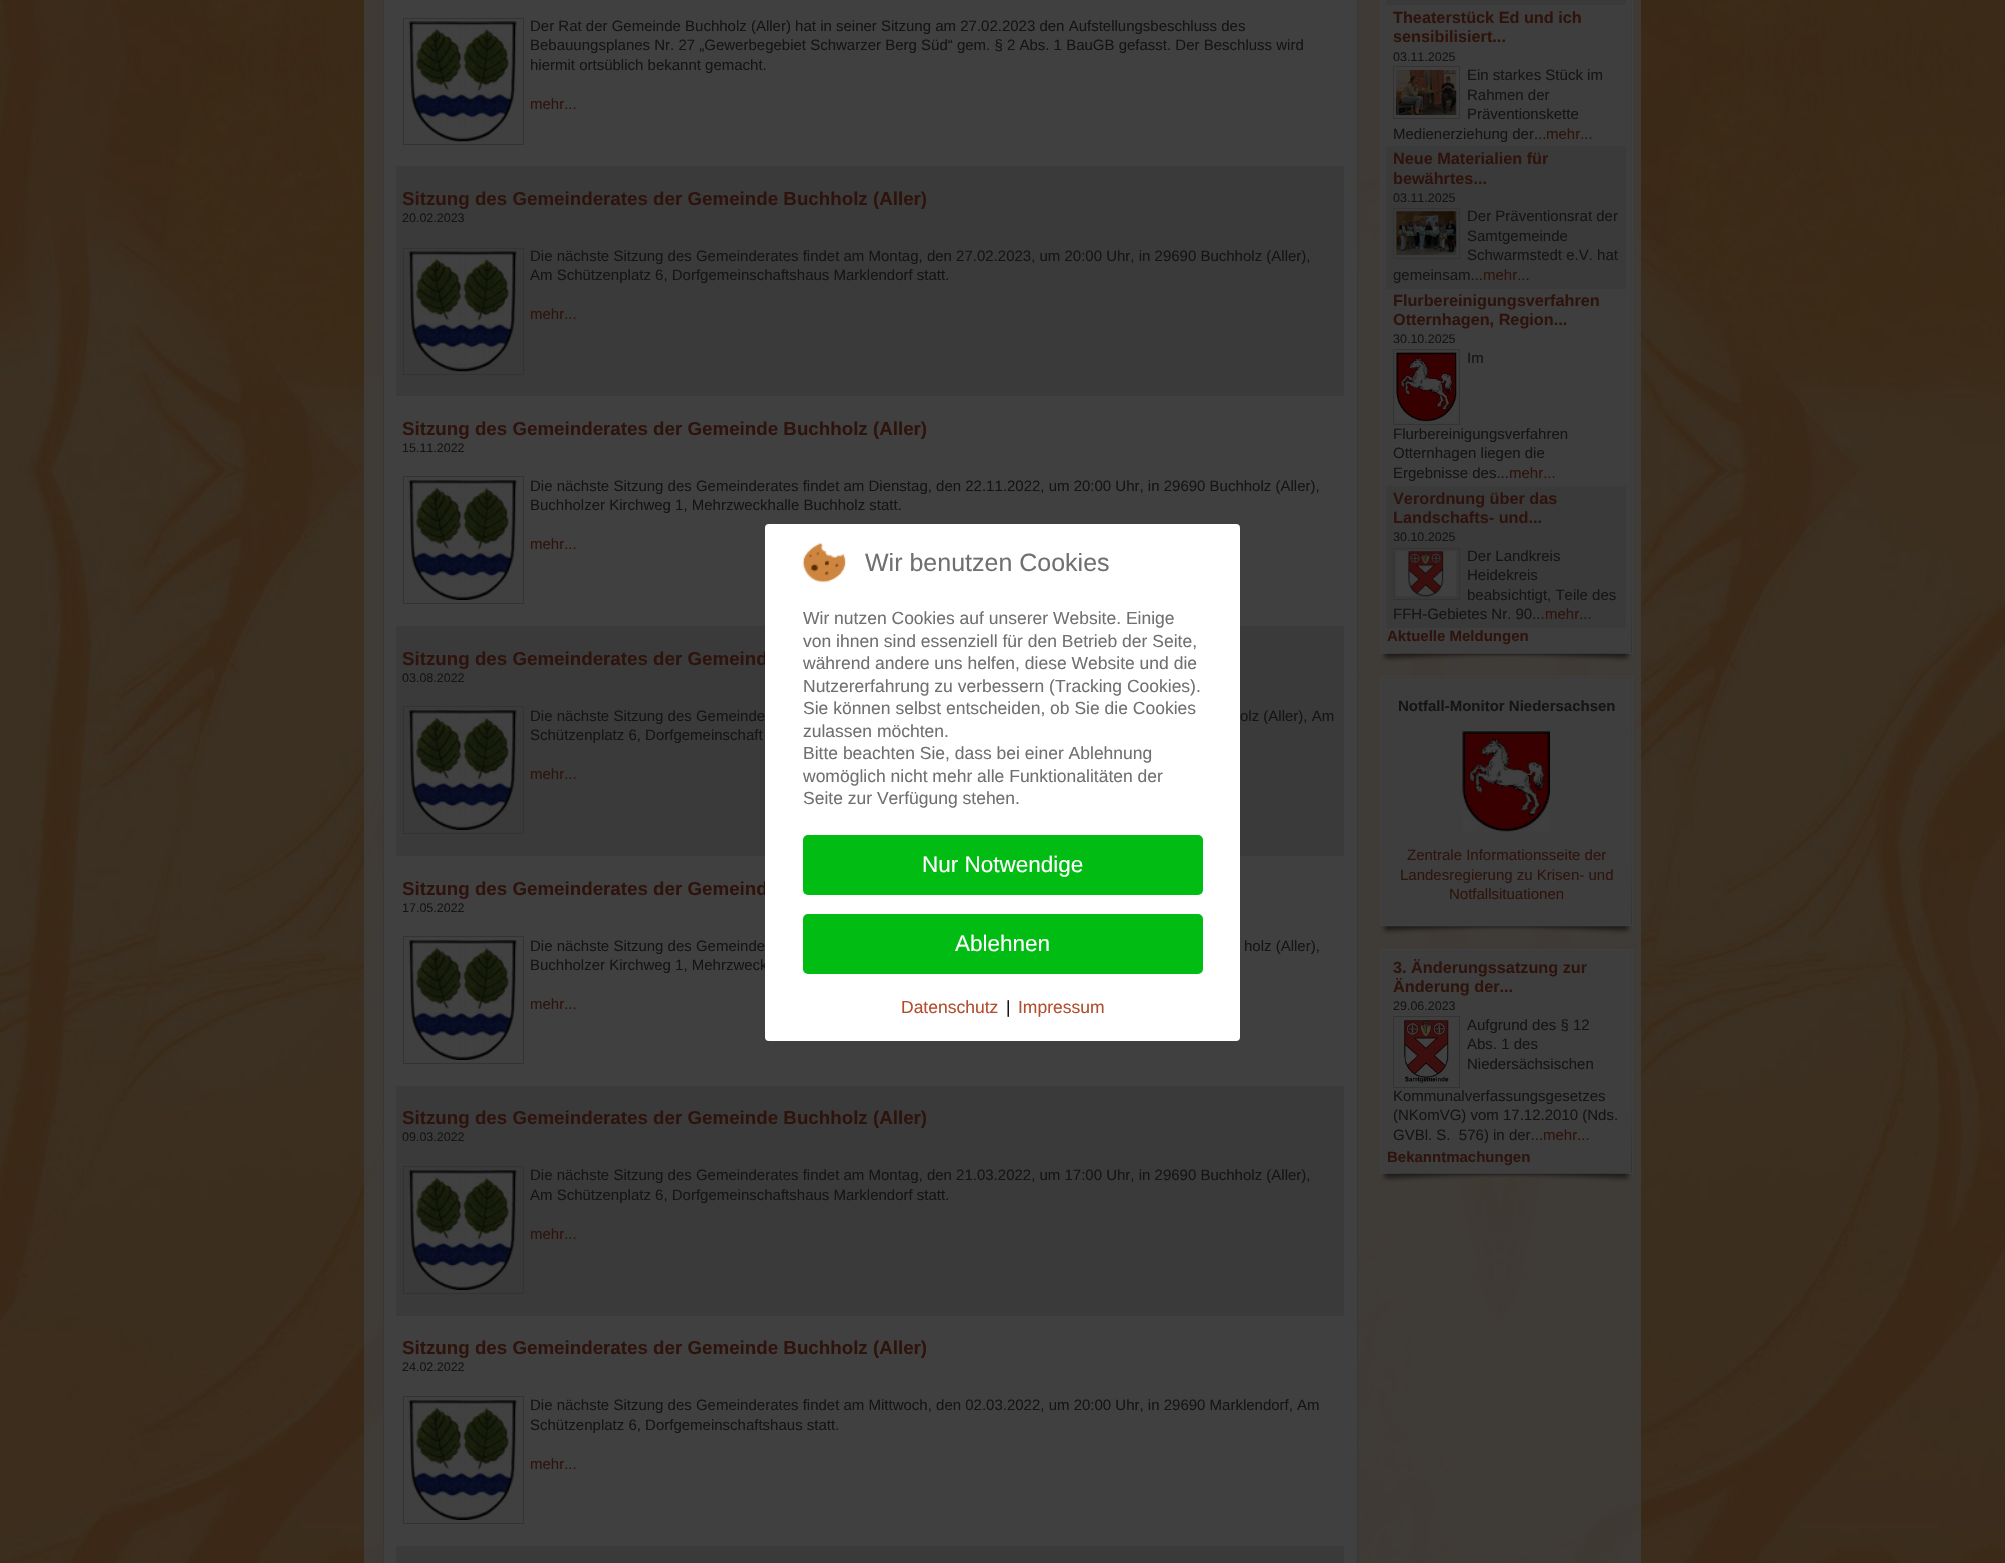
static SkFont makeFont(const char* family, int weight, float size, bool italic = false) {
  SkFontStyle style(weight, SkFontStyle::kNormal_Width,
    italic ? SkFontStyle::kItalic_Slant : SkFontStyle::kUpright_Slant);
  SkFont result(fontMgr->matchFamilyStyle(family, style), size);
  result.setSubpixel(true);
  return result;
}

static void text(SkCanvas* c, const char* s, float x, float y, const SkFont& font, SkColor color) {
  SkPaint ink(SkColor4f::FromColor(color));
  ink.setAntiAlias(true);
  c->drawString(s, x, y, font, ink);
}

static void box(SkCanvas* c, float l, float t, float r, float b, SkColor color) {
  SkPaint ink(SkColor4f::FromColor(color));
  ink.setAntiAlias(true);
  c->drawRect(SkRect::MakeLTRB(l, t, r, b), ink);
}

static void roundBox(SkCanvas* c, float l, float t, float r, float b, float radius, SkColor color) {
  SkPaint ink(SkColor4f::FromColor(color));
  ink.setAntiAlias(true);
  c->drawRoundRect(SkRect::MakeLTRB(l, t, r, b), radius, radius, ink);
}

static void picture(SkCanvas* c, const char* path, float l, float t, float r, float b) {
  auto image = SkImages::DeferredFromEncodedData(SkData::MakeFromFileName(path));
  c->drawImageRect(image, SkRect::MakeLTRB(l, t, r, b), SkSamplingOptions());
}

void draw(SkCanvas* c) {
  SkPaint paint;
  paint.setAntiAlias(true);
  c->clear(0xffffffff);
  picture(c, "img_01.png", 0, 0, 2005, 1563);
  box(c, 364, 0, 1641, 1563, 0xb3404040);
  paint.setColor(0xff404040);
  c->drawRect(SkRect::MakeLTRB(383.5f, -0.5f, 1357.5f, 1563.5f), paint);
  paint.setStyle(SkPaint::kStroke_Style);
  paint.setStrokeWidth(1);
  paint.setColor(0xff373737);
  c->drawRect(SkRect::MakeLTRB(383.5f, -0.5f, 1357.5f, 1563.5f), paint);
  paint.setColor(0xff333333);
  c->drawRect(SkRect::MakeLTRB(403.5f, 18.5f, 523.5f, 144.5f), paint);
  picture(c, "img_02.png", 408, 21, 517, 142);
  SkFont face1 = makeFont("Liberation Sans", 400, 15);
  text(c, "Der Rat der Gemeinde Buchholz (Aller) hat in seiner Sitzung am 27.02.2023 den Aufstellungsbeschluss des", 530, 31, face1, 0xff141414);
  text(c, "Bebauungsplanes Nr. 27 „Gewerbegebiet Schwarzer Berg Süd“ gem. § 2 Abs. 1 BauGB gefasst. Der Beschluss wird", 530, 50, face1, 0xff141414);
  text(c, "hiermit ortsüblich bekannt gemacht.", 530, 70, face1, 0xff141414);
  text(c, "mehr...", 530, 109, face1, 0xff2d130c);
  box(c, 396, 166, 1344, 396, 0xff3a3a3a);
  SkFont face2 = makeFont("Liberation Sans", 700, 18.75f);
  text(c, "Sitzung des Gemeinderates der Gemeinde Buchholz (Aller)", 402, 205, face2, 0xff2d130c);
  SkFont face3 = makeFont("Liberation Sans", 400, 12.5f);
  text(c, "20.02.2023", 402, 222, face3, 0xff141414);
  c->drawRect(SkRect::MakeLTRB(403.5f, 248.5f, 523.5f, 374.5f), paint);
  picture(c, "img_03.png", 408, 251, 517, 372);
  text(c, "Die nächste Sitzung des Gemeinderates findet am Montag, den 27.02.2023, um 20:00 Uhr, in 29690 Buchholz (Aller),", 530, 261, face1, 0xff141414);
  text(c, "Am Schützenplatz 6, Dorfgemeinschaftshaus Marklendorf statt.", 530, 280, face1, 0xff141414);
  text(c, "mehr...", 530, 319, face1, 0xff2d130c);
  text(c, "Sitzung des Gemeinderates der Gemeinde Buchholz (Aller)", 402, 435, face2, 0xff2d130c);
  text(c, "15.11.2022", 402, 452, face3, 0xff141414);
  c->drawRect(SkRect::MakeLTRB(403.5f, 476.5f, 523.5f, 603.5f), paint);
  picture(c, "img_04.png", 408, 480, 517, 600);
  text(c, "Die nächste Sitzung des Gemeinderates findet am Dienstag, den 22.11.2022, um 20:00 Uhr, in 29690 Buchholz (Aller),", 530, 491, face1, 0xff141414);
  text(c, "Buchholzer Kirchweg 1, Mehrzweckhalle Buchholz statt.", 530, 510, face1, 0xff141414);
  text(c, "mehr...", 530, 549, face1, 0xff2d130c);
  box(c, 396, 626, 1344, 856, 0xff3a3a3a);
  text(c, "Sitzung des Gemeinderates der Gemeind", 402, 665, face2, 0xff2d130c);
  text(c, "03.08.2022", 402, 682, face3, 0xff141414);
  c->drawRect(SkRect::MakeLTRB(403.5f, 706.5f, 523.5f, 833.5f), paint);
  picture(c, "img_05.png", 408, 710, 517, 830);
  text(c, "Die nächste Sitzung des Gemeinde", 530, 721, face1, 0xff141414);
  text(c, "olz (Aller), Am", 1240, 721, face1, 0xff141414);
  text(c, "Schützenplatz 6, Dorfgemeinschaft", 530, 740, face1, 0xff141414);
  text(c, "mehr...", 530, 779, face1, 0xff2d130c);
  text(c, "Sitzung des Gemeinderates der Gemeind", 402, 895, face2, 0xff2d130c);
  text(c, "17.05.2022", 402, 912, face3, 0xff141414);
  c->drawRect(SkRect::MakeLTRB(403.5f, 936.5f, 523.5f, 1063.5f), paint);
  picture(c, "img_06.png", 408, 940, 517, 1060);
  text(c, "Die nächste Sitzung des Gemeinde", 530, 951, face1, 0xff141414);
  text(c, "holz (Aller),", 1244, 951, face1, 0xff141414);
  text(c, "Buchholzer Kirchweg 1, Mehrzweck", 530, 970, face1, 0xff141414);
  text(c, "mehr...", 530, 1009, face1, 0xff2d130c);
  box(c, 396, 1086, 1344, 1316, 0xff3a3a3a);
  text(c, "Sitzung des Gemeinderates der Gemeinde Buchholz (Aller)", 402, 1124, face2, 0xff2d130c);
  text(c, "09.03.2022", 402, 1141, face3, 0xff141414);
  c->drawRect(SkRect::MakeLTRB(403.5f, 1166.5f, 523.5f, 1293.5f), paint);
  picture(c, "img_05.png", 408, 1170, 517, 1290);
  text(c, "Die nächste Sitzung des Gemeinderates findet am Montag, den 21.03.2022, um 17:00 Uhr, in 29690 Buchholz (Aller),", 530, 1180, face1, 0xff141414);
  text(c, "Am Schützenplatz 6, Dorfgemeinschaftshaus Marklendorf statt.", 530, 1200, face1, 0xff141414);
  text(c, "mehr...", 530, 1239, face1, 0xff2d130c);
  text(c, "Sitzung des Gemeinderates der Gemeinde Buchholz (Aller)", 402, 1354, face2, 0xff2d130c);
  text(c, "24.02.2022", 402, 1371, face3, 0xff141414);
  c->drawRect(SkRect::MakeLTRB(403.5f, 1396.5f, 523.5f, 1523.5f), paint);
  picture(c, "img_04.png", 408, 1400, 517, 1520);
  text(c, "Die nächste Sitzung des Gemeinderates findet am Mittwoch, den 02.03.2022, um 20:00 Uhr, in 29690 Marklendorf, Am", 530, 1410, face1, 0xff141414);
  text(c, "Schützenplatz 6, Dorfgemeinschaftshaus statt.", 530, 1430, face1, 0xff141414);
  text(c, "mehr...", 530, 1469, face1, 0xff2d130c);
  box(c, 396, 1546, 1344, 1563, 0xff3a3a3a);
  picture(c, "img_07.png", 1631, 593, 1632, 653);
  paint.setColor(0xff404040);
  c->drawRect(SkRect::MakeLTRB(1380.5f, -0.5f, 1632.5f, 653.5f), paint);
  box(c, 1381, 0, 1631, 653, 0xff3e3e3e);
  box(c, 1386, 0, 1626, 5, 0xff3a3a3a);
  SkFont face4 = makeFont("Liberation Sans", 700, 16.25f);
  text(c, "Theaterstück Ed und ich", 1393, 23, face4, 0xff2d130c);
  text(c, "sensibilisiert...", 1393, 42, face4, 0xff2d130c);
  text(c, "03.11.2025", 1393, 61, face3, 0xff141414);
  paint.setColor(0xff333333);
  c->drawRect(SkRect::MakeLTRB(1393.5f, 66.5f, 1459.5f, 118.5f), paint);
  picture(c, "img_08.png", 1396, 70, 1457, 115);
  text(c, "Ein starkes Stück im", 1467, 80, face1, 0xff141414);
  text(c, "Rahmen der", 1467, 100, face1, 0xff141414);
  text(c, "Präventionskette", 1467, 119, face1, 0xff141414);
  text(c, "Medienerziehung der...", 1393, 139, face1, 0xff141414);
  text(c, "mehr...", 1546, 139, face1, 0xff2d130c);
  box(c, 1386, 146, 1626, 289, 0xff3a3a3a);
  text(c, "Neue Materialien für", 1393, 164, face4, 0xff2d130c);
  text(c, "bewährtes...", 1393, 184, face4, 0xff2d130c);
  text(c, "03.11.2025", 1393, 202, face3, 0xff141414);
  c->drawRect(SkRect::MakeLTRB(1393.5f, 208.5f, 1459.5f, 258.5f), paint);
  picture(c, "img_09.png", 1396, 211, 1457, 255);
  text(c, "Der Präventionsrat der", 1467, 221, face1, 0xff141414);
  text(c, "Samtgemeinde", 1467, 241, face1, 0xff141414);
  text(c, "Schwarmstedt e.V. hat", 1467, 260, face1, 0xff141414);
  text(c, "gemeinsam...", 1393, 280, face1, 0xff141414);
  text(c, "mehr...", 1483, 280, face1, 0xff2d130c);
  text(c, "Flurbereinigungsverfahren", 1393, 306, face4, 0xff2d130c);
  text(c, "Otternhagen, Region...", 1393, 325, face4, 0xff2d130c);
  text(c, "30.10.2025", 1393, 343, face3, 0xff141414);
  c->drawRect(SkRect::MakeLTRB(1393.5f, 349.5f, 1459.5f, 424.5f), paint);
  picture(c, "img_10.png", 1396, 352, 1457, 422);
  text(c, "Im", 1467, 363, face1, 0xff141414);
  text(c, "Flurbereinigungsverfahren", 1393, 439, face1, 0xff141414);
  text(c, "Otternhagen liegen die", 1393, 458, face1, 0xff141414);
  text(c, "Ergebnisse des...", 1393, 478, face1, 0xff141414);
  text(c, "mehr...", 1509, 478, face1, 0xff2d130c);
  box(c, 1386, 486, 1626, 628, 0xff3a3a3a);
  text(c, "Verordnung über das", 1393, 504, face4, 0xff2d130c);
  text(c, "Landschafts- und...", 1393, 523, face4, 0xff2d130c);
  text(c, "30.10.2025", 1393, 541, face3, 0xff141414);
  c->drawRect(SkRect::MakeLTRB(1393.5f, 548.5f, 1459.5f, 599.5f), paint);
  picture(c, "img_11.png", 1396, 551, 1457, 597);
  text(c, "Der Landkreis", 1467, 561, face1, 0xff141414);
  text(c, "Heidekreis", 1467, 580, face1, 0xff141414);
  text(c, "beabsichtigt, Teile des", 1467, 600, face1, 0xff141414);
  text(c, "FFH-Gebietes Nr. 90...", 1393, 619, face1, 0xff141414);
  text(c, "mehr...", 1545, 619, face1, 0xff2d130c);
  SkFont face5 = makeFont("Liberation Sans", 700, 15);
  text(c, "Aktuelle Meldungen", 1387, 641, face5, 0xff2d130c);
  picture(c, "img_12.png", 1380, 653, 1632, 662);
  picture(c, "img_13.png", 1380, 653, 1632, 662);
  picture(c, "img_14.png", 1380, 926, 1402, 927);
  picture(c, "img_15.png", 1611, 865, 1632, 927);
  picture(c, "img_16.png", 1607, 677, 1631, 678);
  paint.setColor(0xff404040);
  c->drawRect(SkRect::MakeLTRB(1380.5f, 676.5f, 1632.5f, 925.5f), paint);
  box(c, 1381, 678, 1631, 925, 0xff3e3e3e);
  text(c, "Notfall-Monitor Niedersachsen", 1398, 711, face5, 0xff141414);
  picture(c, "img_17.png", 1462, 731, 1550, 832);
  text(c, "Zentrale Informationsseite der", 1407, 860, face1, 0xff2d130c);
  text(c, "Landesregierung zu Krisen- und", 1400, 880, face1, 0xff2d130c);
  text(c, "Notfallsituationen", 1449, 899, face1, 0xff2d130c);
  picture(c, "img_18.png", 1380, 926, 1632, 935);
  picture(c, "img_19.png", 1380, 926, 1632, 935);
  picture(c, "img_20.png", 1631, 1113, 1632, 1173);
  c->drawRect(SkRect::MakeLTRB(1380.5f, 949.5f, 1632.5f, 1173.5f), paint);
  box(c, 1381, 950, 1631, 1173, 0xff3e3e3e);
  text(c, "3. Änderungssatzung zur", 1393, 973, face4, 0xff2d130c);
  text(c, "Änderung der...", 1393, 992, face4, 0xff2d130c);
  text(c, "29.06.2023", 1393, 1010, face3, 0xff141414);
  paint.setColor(0xff333333);
  c->drawRect(SkRect::MakeLTRB(1393.5f, 1016.5f, 1459.5f, 1087.5f), paint);
  picture(c, "img_21.png", 1404, 1020, 1449, 1083);
  text(c, "Aufgrund des § 12", 1467, 1030, face1, 0xff141414);
  text(c, "Abs. 1 des", 1467, 1049, face1, 0xff141414);
  text(c, "Niedersächsischen", 1467, 1069, face1, 0xff141414);
  text(c, "Kommunalverfassungsgesetzes", 1393, 1101, face1, 0xff141414);
  text(c, "(NKomVG) vom 17.12.2010 (Nds.", 1393, 1120, face1, 0xff141414);
  text(c, "GVBl. S.  576) in der...", 1393, 1140, face1, 0xff141414);
  text(c, "mehr...", 1543, 1140, face1, 0xff2d130c);
  text(c, "Bekanntmachungen", 1387, 1162, face5, 0xff2d130c);
  picture(c, "img_22.png", 1380, 1173, 1632, 1182);
  picture(c, "img_23.png", 1380, 1173, 1632, 1182);
  roundBox(c, 765, 524, 1240, 1041, 4, 0xffffffff);
  picture(c, "img_24.png", 802, 542, 847, 583);
  SkFont face6 = makeFont("Liberation Sans", 400, 25);
  text(c, "Wir benutzen Cookies", 865, 571, face6, 0xff707070);
  SkFont face7 = makeFont("Liberation Sans", 400, 17.5f);
  text(c, "Wir nutzen Cookies auf unserer Website. Einige", 803, 624, face7, 0xff707070);
  text(c, "von ihnen sind essenziell für den Betrieb der Seite,", 803, 647, face7, 0xff707070);
  text(c, "während andere uns helfen, diese Website und die", 803, 669, face7, 0xff707070);
  text(c, "Nutzererfahrung zu verbessern (Tracking Cookies).", 803, 692, face7, 0xff707070);
  text(c, "Sie können selbst entscheiden, ob Sie die Cookies", 803, 714, face7, 0xff707070);
  text(c, "zulassen möchten.", 803, 737, face7, 0xff707070);
  text(c, "Bitte beachten Sie, dass bei einer Ablehnung", 803, 759, face7, 0xff707070);
  text(c, "womöglich nicht mehr alle Funktionalitäten der", 803, 782, face7, 0xff707070);
  text(c, "Seite zur Verfügung stehen.", 803, 804, face7, 0xff707070);
  roundBox(c, 803, 835, 1203, 895, 5, 0xff00bc13);
  SkFont face8 = makeFont("Liberation Sans", 400, 22.5f);
  text(c, "Nur Notwendige", 922, 872, face8, 0xffffffff);
  roundBox(c, 803, 914, 1203, 974, 5, 0xff00bc13);
  text(c, "Ablehnen", 955, 951, face8, 0xffffffff);
  text(c, "Datenschutz", 901, 1013, face7, 0xffb34d2e);
  text(c, "|", 1006, 1013, face7, 0xff141414);
  text(c, "Impressum", 1018, 1013, face7, 0xffb34d2e);
}
